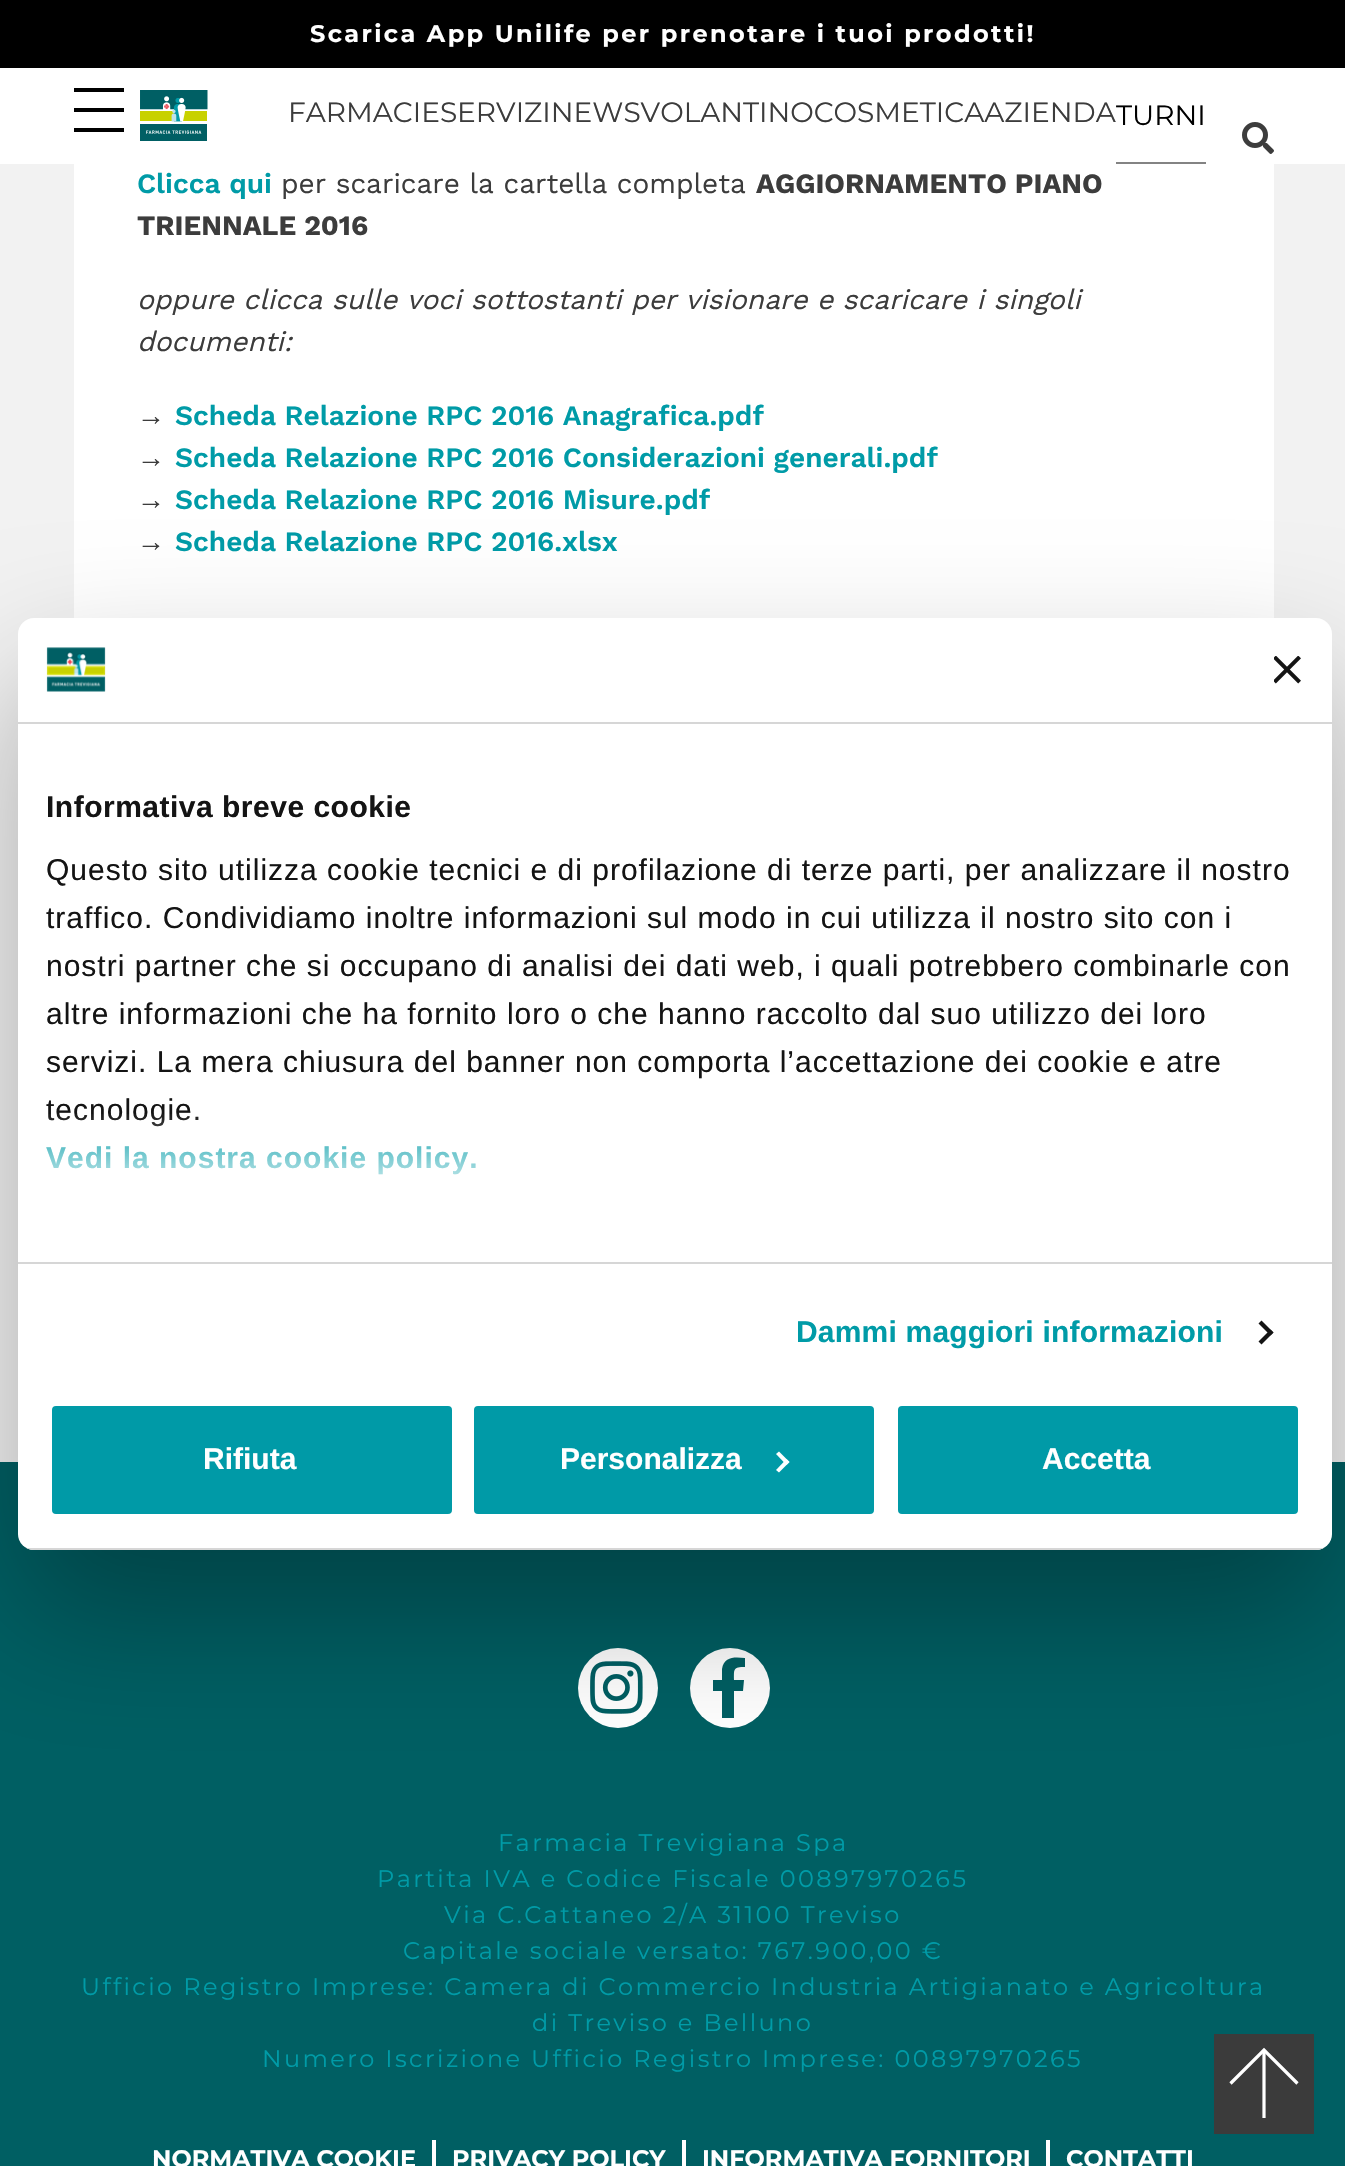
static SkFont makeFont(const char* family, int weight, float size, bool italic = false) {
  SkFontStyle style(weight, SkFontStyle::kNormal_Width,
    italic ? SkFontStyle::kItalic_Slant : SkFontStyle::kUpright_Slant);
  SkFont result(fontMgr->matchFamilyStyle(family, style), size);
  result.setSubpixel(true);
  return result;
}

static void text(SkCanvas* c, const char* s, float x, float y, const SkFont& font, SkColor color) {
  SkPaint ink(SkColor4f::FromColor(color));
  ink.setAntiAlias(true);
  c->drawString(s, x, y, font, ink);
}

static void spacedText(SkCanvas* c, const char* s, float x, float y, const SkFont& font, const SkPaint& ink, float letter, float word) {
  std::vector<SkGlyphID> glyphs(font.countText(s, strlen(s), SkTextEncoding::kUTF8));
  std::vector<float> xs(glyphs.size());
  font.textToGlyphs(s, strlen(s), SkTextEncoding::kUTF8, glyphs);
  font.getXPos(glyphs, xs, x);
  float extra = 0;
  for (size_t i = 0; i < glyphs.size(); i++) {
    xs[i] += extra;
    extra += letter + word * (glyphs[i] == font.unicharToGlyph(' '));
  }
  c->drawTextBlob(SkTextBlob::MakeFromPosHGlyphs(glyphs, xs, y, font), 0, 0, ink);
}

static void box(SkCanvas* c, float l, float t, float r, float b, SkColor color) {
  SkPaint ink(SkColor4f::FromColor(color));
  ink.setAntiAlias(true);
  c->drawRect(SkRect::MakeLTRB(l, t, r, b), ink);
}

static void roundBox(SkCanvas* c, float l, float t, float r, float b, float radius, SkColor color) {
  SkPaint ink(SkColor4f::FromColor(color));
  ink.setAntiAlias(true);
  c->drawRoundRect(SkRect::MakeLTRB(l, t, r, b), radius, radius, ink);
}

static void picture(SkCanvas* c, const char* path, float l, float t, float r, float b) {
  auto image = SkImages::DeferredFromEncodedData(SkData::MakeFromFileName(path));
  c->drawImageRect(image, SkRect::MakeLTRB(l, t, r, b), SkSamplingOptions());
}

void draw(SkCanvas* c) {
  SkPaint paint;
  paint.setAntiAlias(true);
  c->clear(0xfff2f2f2);
  box(c, 0, 68, 1345, 164, 0xffffffff);
  box(c, 0, 0, 1345, 68, 0xff000000);
  SkFont face1 = makeFont("Montserrat", 700, 24);
  paint.setColor(0xffffffff);
  spacedText(c, "Scarica App Unilife per prenotare i tuoi prodotti!", 310, 42, face1, paint, 2.4f, 0);
  box(c, 74, 88, 124, 92, 0xff000000);
  box(c, 74, 108, 124, 112, 0xff000000);
  box(c, 74, 128, 124, 132, 0xff000000);
  picture(c, "img_01.png", 140, 90, 208, 141);
  SkFont face2 = makeFont("Montserrat", 400, 28);
  text(c, "FARMACIESERVIZINEWSVOLANTINOCOSMETICAAZIENDA", 288, 122, face2, 0xff3c3c3c);
  box(c, 1116, 162, 1206, 164, 0xff838383);
  text(c, "TURNI", 1116, 125, face2, 0xff000000);
  picture(c, "img_02.png", 1242, 122, 1274, 154);
  box(c, 74, 164, 1274, 618, 0xffffffff);
  SkFont face3 = makeFont("Work Sans", 600, 28);
  text(c, "Clicca qui", 137, 193, face3, 0xff009ba7);
  SkFont face4 = makeFont("Work Sans", 400, 28);
  text(c, "per scaricare la cartella completa", 281, 193, face4, 0xff3c3c3c);
  SkFont face5 = makeFont("Work Sans", 700, 28);
  text(c, "AGGIORNAMENTO PIANO", 756, 193, face5, 0xff3c3c3c);
  text(c, "TRIENNALE 2016", 137, 235, face5, 0xff3c3c3c);
  SkFont face6 = makeFont("Work Sans", 400, 28, true);
  text(c, "oppure clicca sulle voci sottostanti per visionare e scaricare i singoli", 137, 309, face6, 0xff3c3c3c);
  text(c, "documenti:", 137, 351, face6, 0xff3c3c3c);
  SkFont face7 = makeFont("Liberation Serif", 400, 28);
  text(c, "→", 137, 425, face7, 0xff3c3c3c);
  text(c, "Scheda Relazione RPC 2016 Anagrafica.pdf", 175, 425, face3, 0xff009ba7);
  text(c, "→", 137, 467, face7, 0xff3c3c3c);
  text(c, "Scheda Relazione RPC 2016 Considerazioni generali.pdf", 175, 467, face3, 0xff009ba7);
  text(c, "→", 137, 509, face7, 0xff3c3c3c);
  text(c, "Scheda Relazione RPC 2016 Misure.pdf", 175, 509, face3, 0xff009ba7);
  text(c, "→", 137, 551, face7, 0xff3c3c3c);
  text(c, "Scheda Relazione RPC 2016.xlsx", 175, 551, face3, 0xff009ba7);
  box(c, 0, 1462, 1345, 2166, 0xff005f63);
  c->drawCircle(618, 1688, 40, paint);
  picture(c, "img_05.png", 590, 1661, 643, 1714);
  c->drawCircle(730, 1688, 40, paint);
  paint.setColor(0xff005f63);
  c->drawPath(SkPathBuilder().moveTo(743, 1691).lineTo(734, 1691).lineTo(734, 1718).lineTo(722, 1718).lineTo(722, 1691).lineTo(713, 1691).lineTo(713, 1680).lineTo(722, 1680).lineTo(722, 1669).cubicTo(724, 1656, 735, 1657, 745, 1658).lineTo(745, 1667).cubicTo(733, 1667, 734, 1669, 734, 1680).lineTo(744, 1680).close().detach(), paint);
  paint.setColor(0x4d000000);
  paint.setMaskFilter(SkMaskFilter::MakeBlur(kNormal_SkBlurStyle, 68));
  c->drawRoundRect(SkRect::MakeLTRB(18, 682, 1332, 1614), 16, 16, paint);
  paint.setMaskFilter(nullptr);
  roundBox(c, 18, 618, 1332, 1550, 16, 0xffffffff);
  box(c, 18, 722, 1332, 724, 0xffd6d6d6);
  picture(c, "img_03.png", 46, 647, 106, 692);
  picture(c, "img_04.png", 1274, 656, 1301, 684);
  box(c, 18, 1262, 1332, 1264, 0xffd6d6d6);
  SkFont face8 = makeFont("Liberation Sans", 700, 30);
  paint.setColor(0xff141414);
  spacedText(c, "Informativa breve cookie", 46, 817, face8, paint, 0.5f, 0);
  SkFont face9 = makeFont("Liberation Sans", 400, 30);
  spacedText(c, "Questo sito utilizza cookie tecnici e di profilazione di terze parti, per analizzare il nostro", 46, 880, face9, paint, 1, 0);
  spacedText(c, "traffico. Condividiamo inoltre informazioni sul modo in cui utilizza il nostro sito con i", 46, 928, face9, paint, 1, 0);
  spacedText(c, "nostri partner che si occupano di analisi dei dati web, i quali potrebbero combinarle con", 46, 976, face9, paint, 1, 0);
  spacedText(c, "altre informazioni che ha fornito loro o che hanno raccolto dal suo utilizzo dei loro", 46, 1024, face9, paint, 1, 0);
  spacedText(c, "servizi. La mera chiusura del banner non comporta l’accettazione dei cookie e atre", 46, 1072, face9, paint, 1, 0);
  spacedText(c, "tecnologie.", 46, 1120, face9, paint, 1, 0);
  paint.setColor(0xff009ba7);
  spacedText(c, "Vedi la nostra cookie policy.", 46, 1168, face8, paint, 1, 0);
  {
    const SkColor colors[] = {0xffffffff, 0xccffffff, 0x00ffffff};
    const float stops[] = {0, 0.5f, 1};
    const SkPoint ends[] = {{661, 1262}, {661, 1112}};
    paint.setShader(SkGradientShader::MakeLinear(ends, colors, stops, 3, SkTileMode::kClamp));
    paint.setAlpha(255);
  }
  c->drawRect(SkRect::MakeLTRB(46, 1114, 476, 1175), paint);
  paint.setShader(nullptr);
  paint.setColor(0xff009ba7);
  spacedText(c, "Dammi maggiori informazioni", 796, 1342, face8, paint, 0.2f, 0);
  paint.setColor(0xff141414);
  c->drawPath(SkPathBuilder().moveTo(1261.5f, 1320.5f).lineTo(1273.5f, 1332.5f).lineTo(1270.5f, 1335.5f).lineTo(1258.5f, 1323.5f).close().detach(), paint);
  c->drawPath(SkPathBuilder().moveTo(1270.5f, 1329.5f).lineTo(1273.5f, 1332.5f).lineTo(1261.5f, 1344.5f).lineTo(1258.5f, 1341.5f).close().detach(), paint);
  c->save();
  c->clipPath(SkPathBuilder().moveTo(34, 618).lineTo(1316, 618).cubicTo(1325, 618, 1332, 625, 1332, 634).lineTo(1332, 1534).cubicTo(1332, 1543, 1325, 1550, 1316, 1550).lineTo(34, 1550).cubicTo(25, 1550, 18, 1543, 18, 1534).lineTo(18, 634).cubicTo(18, 625, 25, 618, 34, 618).close().detach(), true);
  box(c, 18, 1548, 1332, 1550, 0xffd6d6d6);
  c->restore();
  paint.setColor(0xff009aa7);
  c->drawRoundRect(SkRect::MakeLTRB(50, 1404, 454, 1516), 6, 6, paint);
  paint.setStyle(SkPaint::kStroke_Style);
  paint.setStrokeWidth(4);
  paint.setColor(0xffffffff);
  c->drawRoundRect(SkRect::MakeLTRB(50, 1404, 454, 1516), 6, 6, paint);
  text(c, "Rifiuta", 203, 1469, face8, 0xffffffff);
  paint.setStyle(SkPaint::kFill_Style);
  paint.setColor(0xff009aa7);
  c->drawRoundRect(SkRect::MakeLTRB(472, 1404, 876, 1516), 6, 6, paint);
  paint.setStyle(SkPaint::kStroke_Style);
  paint.setColor(0xffffffff);
  c->drawRoundRect(SkRect::MakeLTRB(472, 1404, 876, 1516), 6, 6, paint);
  text(c, "Personalizza", 560, 1469, face8, 0xffffffff);
  paint.setStyle(SkPaint::kFill_Style);
  c->drawPath(SkPathBuilder().moveTo(779, 1451.5f).lineTo(789.5f, 1462).lineTo(786.5f, 1465).lineTo(776, 1454).close().detach(), paint);
  c->drawPath(SkPathBuilder().moveTo(786.5f, 1459).lineTo(789.5f, 1462).lineTo(779, 1472.5f).lineTo(776, 1470).close().detach(), paint);
  paint.setColor(0xff009aa7);
  c->drawRoundRect(SkRect::MakeLTRB(896, 1404, 1300, 1516), 6, 6, paint);
  paint.setStyle(SkPaint::kStroke_Style);
  paint.setColor(0xffffffff);
  c->drawRoundRect(SkRect::MakeLTRB(896, 1404, 1300, 1516), 6, 6, paint);
  text(c, "Accetta", 1042, 1469, face8, 0xffffffff);
  SkFont face10 = makeFont("Montserrat", 400, 24);
  paint.setStyle(SkPaint::kFill_Style);
  paint.setColor(0xff009ba7);
  spacedText(c, "Farmacia Trevigiana Spa", 498, 1851, face10, paint, 2.4f, 0);
  spacedText(c, "Partita IVA e Codice Fiscale 00897970265", 377, 1887, face10, paint, 2.4f, 0);
  spacedText(c, "Via C.Cattaneo 2/A 31100 Treviso", 444, 1923, face10, paint, 2.4f, 0);
  spacedText(c, "Capitale sociale versato: 767.900,00 €", 403, 1959, face10, paint, 2.4f, 0);
  spacedText(c, "Ufficio Registro Imprese: Camera di Commercio Industria Artigianato e Agricoltura", 81, 1995, face10, paint, 2.4f, 0);
  spacedText(c, "di Treviso e Belluno", 532, 2031, face10, paint, 2.4f, 0);
  spacedText(c, "Numero Iscrizione Ufficio Registro Imprese: 00897970265", 262, 2067, face10, paint, 2.4f, 0);
  box(c, 432, 2140, 436, 2166, 0xffffffff);
  text(c, "NORMATIVA COOKIE", 152, 2167, face1, 0xffffffff);
  box(c, 682, 2140, 686, 2166, 0xffffffff);
  text(c, "PRIVACY POLICY", 452, 2167, face1, 0xffffffff);
  box(c, 1046, 2140, 1050, 2166, 0xffffffff);
  text(c, "INFORMATIVA FORNITORI", 702, 2167, face1, 0xffffffff);
  text(c, "CONTATTI", 1066, 2167, face1, 0xffffffff);
  box(c, 1214, 2034, 1314, 2134, 0xff3b3b3b);
  paint.setStyle(SkPaint::kStroke_Style);
  paint.setStrokeWidth(3.2f);
  paint.setColor(0xffffffff);
  c->drawPath(SkPathBuilder().moveTo(1230.5f, 2083.5f).lineTo(1264, 2050).lineTo(1297.5f, 2083.5f).detach(), paint);
  c->drawPath(SkPathBuilder().moveTo(1264, 2118).lineTo(1264, 2050).detach(), paint);
}
